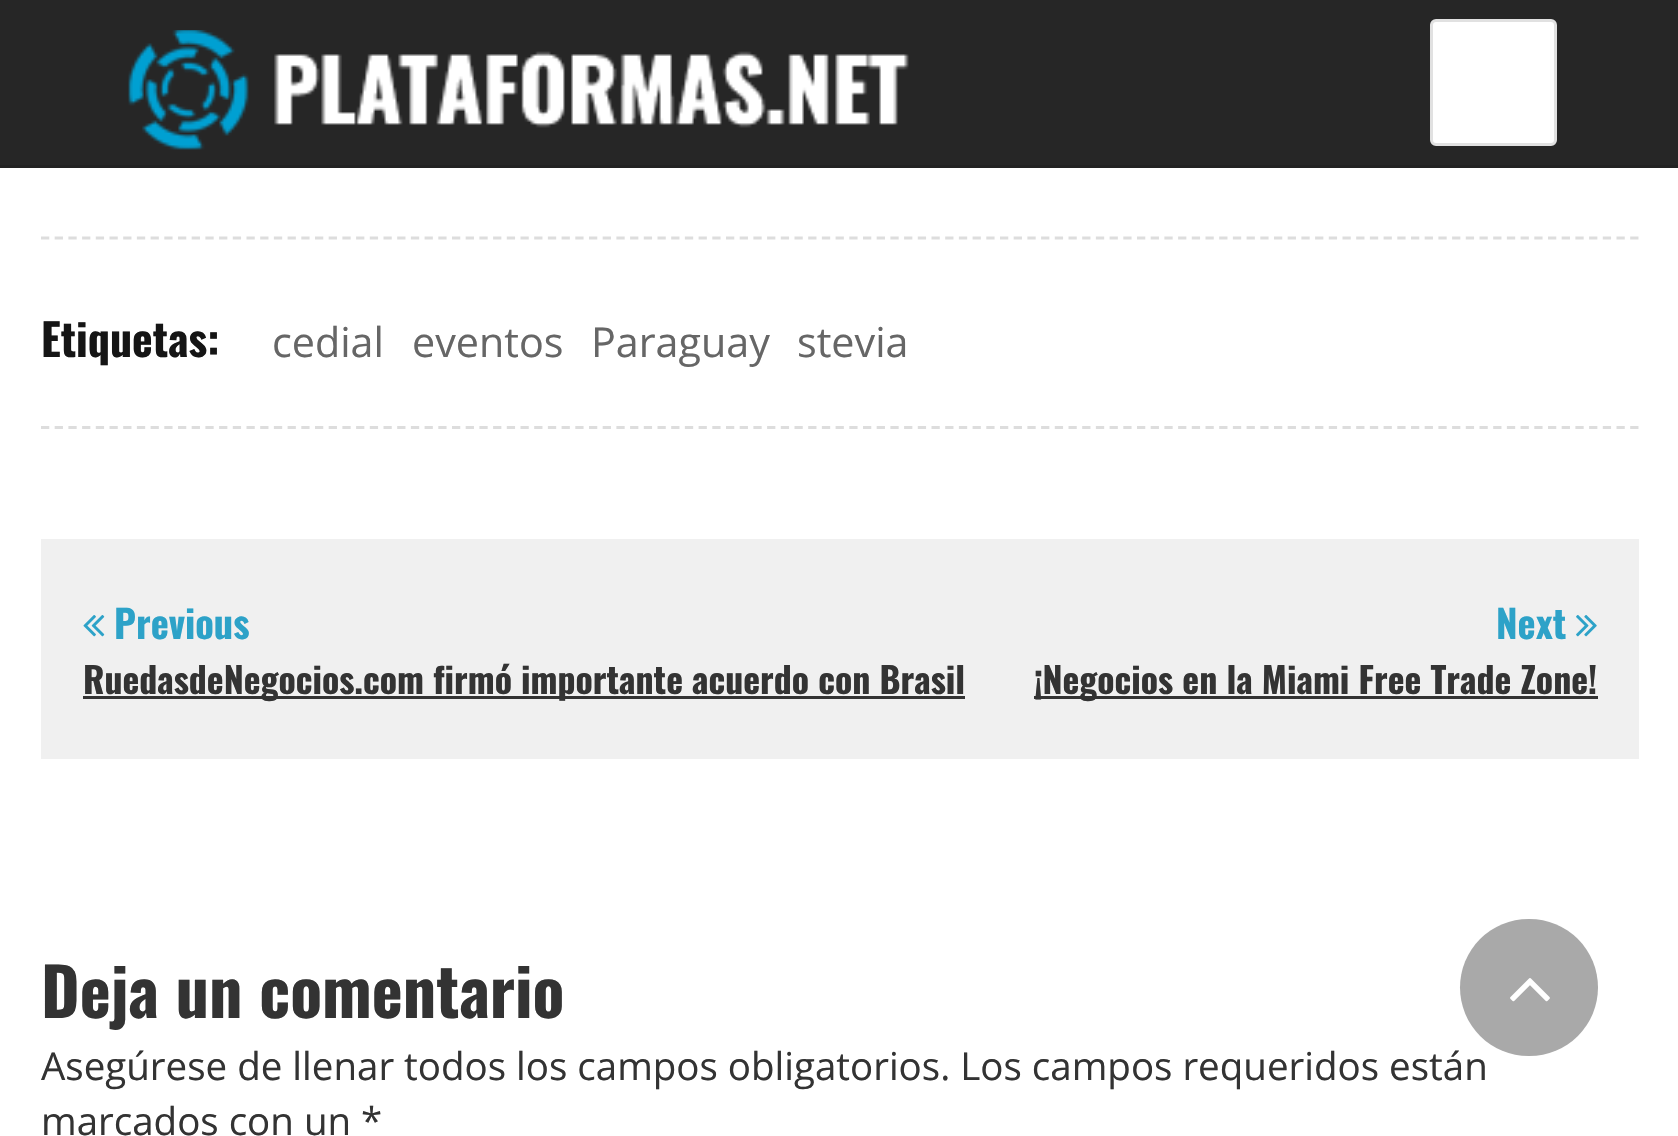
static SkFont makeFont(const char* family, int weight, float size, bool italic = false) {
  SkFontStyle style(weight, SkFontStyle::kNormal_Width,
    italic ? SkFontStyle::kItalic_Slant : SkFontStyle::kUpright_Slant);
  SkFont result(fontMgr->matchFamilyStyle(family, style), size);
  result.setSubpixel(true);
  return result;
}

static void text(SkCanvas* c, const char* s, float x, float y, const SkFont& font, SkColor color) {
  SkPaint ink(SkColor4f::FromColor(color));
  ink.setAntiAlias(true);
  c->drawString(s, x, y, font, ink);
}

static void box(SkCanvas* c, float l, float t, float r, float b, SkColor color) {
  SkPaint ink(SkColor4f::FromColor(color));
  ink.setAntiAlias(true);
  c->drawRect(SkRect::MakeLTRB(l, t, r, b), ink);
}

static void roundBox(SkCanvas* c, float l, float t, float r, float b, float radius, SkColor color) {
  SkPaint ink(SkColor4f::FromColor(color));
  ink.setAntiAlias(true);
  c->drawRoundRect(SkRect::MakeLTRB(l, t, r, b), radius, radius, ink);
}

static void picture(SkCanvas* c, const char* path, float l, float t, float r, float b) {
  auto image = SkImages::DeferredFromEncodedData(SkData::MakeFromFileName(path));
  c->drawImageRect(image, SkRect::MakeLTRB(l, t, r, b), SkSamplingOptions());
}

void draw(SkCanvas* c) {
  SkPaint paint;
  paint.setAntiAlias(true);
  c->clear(0xffffffff);
  box(c, 0, 0, 1678, 165, 0xff262626);
  box(c, 0, 165, 1678, 168, 0xff222222);
  picture(c, "img_01.png", 128, 30, 909, 150);
  paint.setColor(0xffffffff);
  c->drawRoundRect(SkRect::MakeLTRB(1431.5f, 20.5f, 1555.5f, 144.5f), 4.5f, 4.5f, paint);
  paint.setStyle(SkPaint::kStroke_Style);
  paint.setStrokeWidth(3);
  paint.setColor(0xffe1e1e1);
  c->drawRoundRect(SkRect::MakeLTRB(1431.5f, 20.5f, 1555.5f, 144.5f), 4.5f, 4.5f, paint);
  paint.setStrokeWidth(2.8f);
  paint.setColor(0xffdddddd);
  paint.setPathEffect(SkDashPathEffect::Make({{8.25f, 5.45f}}, 0));
  c->drawPath(SkPathBuilder().moveTo(41, 238).lineTo(1639, 238).detach(), paint);
  paint.setPathEffect(nullptr);
  paint.setPathEffect(SkDashPathEffect::Make({{8.25f, 5.45f}}, 0));
  c->drawPath(SkPathBuilder().moveTo(41, 427.5f).lineTo(1639, 427.5f).detach(), paint);
  paint.setPathEffect(nullptr);
  SkFont face1 = makeFont("Oswald", 700, 44);
  text(c, "Etiquetas:", 41, 357, face1, 0xff151515);
  SkFont face2 = makeFont("Open Sans", 400, 41.25f);
  text(c, "cedial", 272, 357, face2, 0xff666666);
  text(c, "eventos", 412, 357, face2, 0xff666666);
  text(c, "Paraguay", 591, 357, face2, 0xff666666);
  text(c, "stevia", 797, 357, face2, 0xff666666);
  box(c, 41, 539, 1639, 759, 0xfff0f0f0);
  picture(c, "img_02.png", 83, 615, 105, 637);
  SkFont face3 = makeFont("Oswald", 700, 38.5f);
  text(c, "Previous", 114, 639, face3, 0xff2da2c8);
  box(c, 83, 696, 965, 699, 0xff333333);
  SkFont face4 = makeFont("Oswald", 700, 35.75f);
  text(c, "RuedasdeNegocios.com firmó importante acuerdo con Brasil", 83, 694, face4, 0xff333333);
  text(c, "Next", 1496, 639, face3, 0xff2da2c8);
  picture(c, "img_03.png", 1576, 615, 1597, 637);
  box(c, 1034, 696, 1598, 699, 0xff333333);
  text(c, "¡Negocios en la Miami Free Trade Zone!", 1034, 694, face4, 0xff333333);
  SkFont face5 = makeFont("Oswald", 700, 66);
  text(c, "Deja un comentario", 41, 1018, face5, 0xff333333);
  SkFont face6 = makeFont("Open Sans", 400, 38.5f);
  text(c, "Asegúrese de llenar todos los campos obligatorios. Los campos requeridos están", 41, 1080, face6, 0xff333333);
  text(c, "marcados con un *", 41, 1135, face6, 0xff333333);
  roundBox(c, 1460, 919, 1598, 1056, 68.5f, 0xffa9a9a9);
  picture(c, "img_04.png", 1510, 978, 1550, 1002);
}
